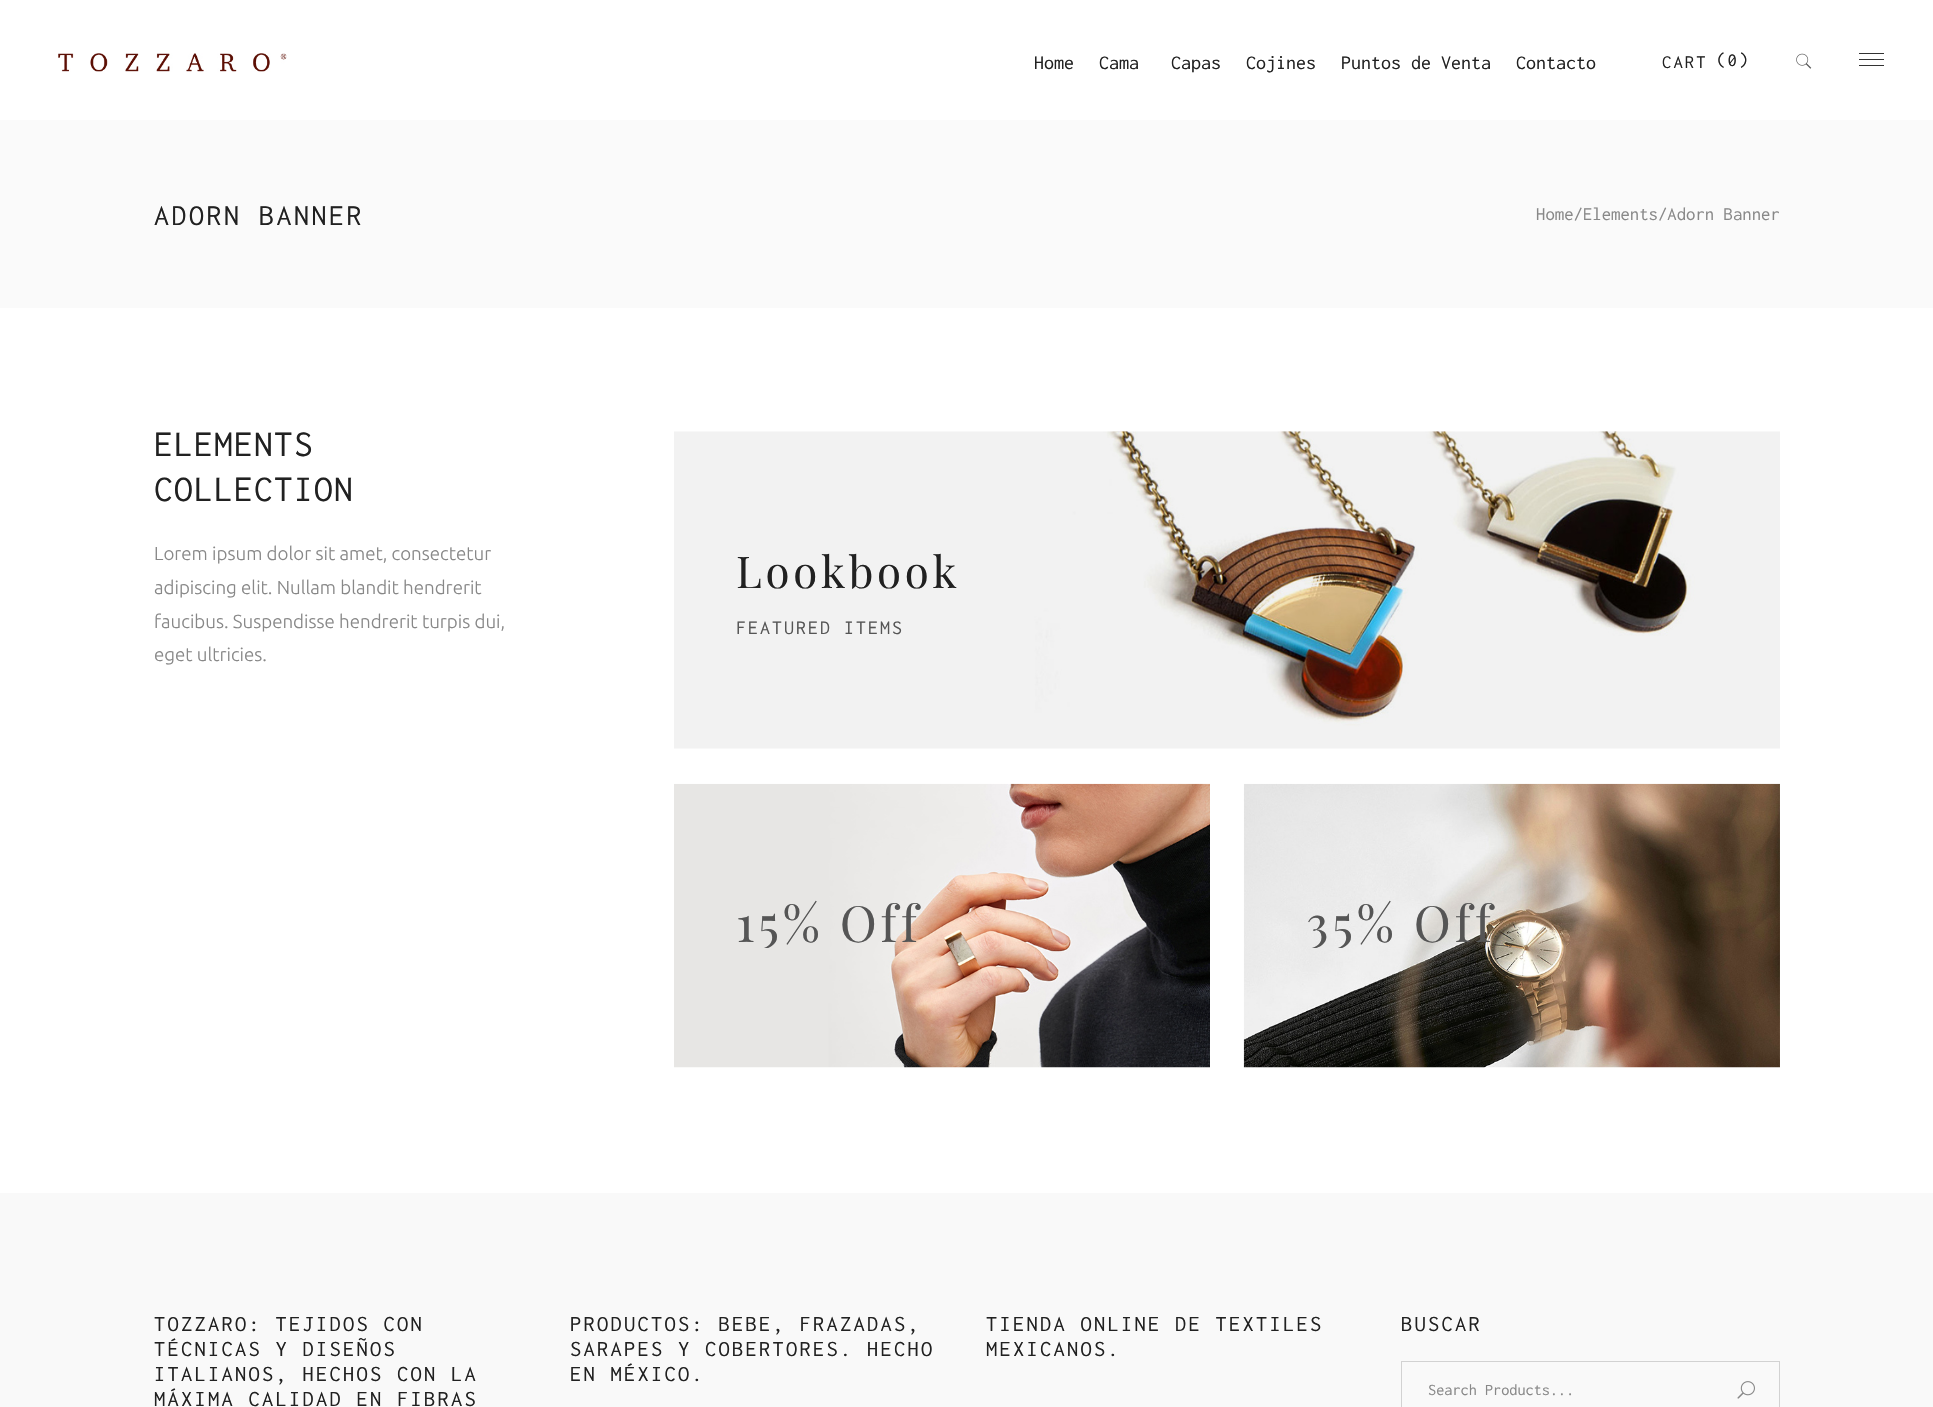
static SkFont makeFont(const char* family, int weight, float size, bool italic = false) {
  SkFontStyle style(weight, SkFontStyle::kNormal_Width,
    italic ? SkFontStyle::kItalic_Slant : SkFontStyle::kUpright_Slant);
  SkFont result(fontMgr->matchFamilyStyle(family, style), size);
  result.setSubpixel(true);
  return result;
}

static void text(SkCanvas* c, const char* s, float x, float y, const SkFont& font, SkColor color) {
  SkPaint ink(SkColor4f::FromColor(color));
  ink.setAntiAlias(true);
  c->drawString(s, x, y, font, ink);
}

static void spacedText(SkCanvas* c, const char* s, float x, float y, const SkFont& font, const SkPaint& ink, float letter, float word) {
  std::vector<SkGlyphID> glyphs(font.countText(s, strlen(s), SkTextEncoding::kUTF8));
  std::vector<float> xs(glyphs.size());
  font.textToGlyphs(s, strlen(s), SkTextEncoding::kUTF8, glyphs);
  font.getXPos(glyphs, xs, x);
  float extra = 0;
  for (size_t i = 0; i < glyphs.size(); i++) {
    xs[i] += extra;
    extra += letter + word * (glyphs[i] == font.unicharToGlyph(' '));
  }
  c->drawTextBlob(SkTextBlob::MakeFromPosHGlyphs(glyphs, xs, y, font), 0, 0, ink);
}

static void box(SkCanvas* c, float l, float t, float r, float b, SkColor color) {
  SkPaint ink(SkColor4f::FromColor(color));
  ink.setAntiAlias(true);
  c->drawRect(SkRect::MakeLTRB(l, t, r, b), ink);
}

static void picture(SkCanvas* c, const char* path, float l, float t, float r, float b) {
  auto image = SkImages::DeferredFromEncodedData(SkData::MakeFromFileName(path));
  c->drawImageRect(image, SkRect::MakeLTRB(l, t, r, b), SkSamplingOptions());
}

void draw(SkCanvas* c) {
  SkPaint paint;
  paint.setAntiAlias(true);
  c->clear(0xffffffff);
  picture(c, "img_01.png", 58, 53, 287, 72);
  SkFont face1 = makeFont("Inconsolata", 400, 20);
  text(c, "Home", 1034, 69, face1, 0xff212121);
  text(c, "Cama", 1099, 69, face1, 0xff212121);
  text(c, "Capas", 1171, 69, face1, 0xff212121);
  text(c, "Cojines", 1246, 69, face1, 0xff212121);
  text(c, "Puntos de Venta", 1341, 69, face1, 0xff212121);
  text(c, "Contacto", 1516, 69, face1, 0xff212121);
  SkFont face2 = makeFont("Inconsolata", 400, 18.75f);
  paint.setColor(0xff212121);
  spacedText(c, "CART", 1662, 68, face2, paint, 2, 0);
  spacedText(c, "(0)", 1716, 66, face2, paint, 2, 0);
  picture(c, "img_02.png", 1796, 53, 1812, 69);
  box(c, 1859, 53, 1884, 54, 0xff333333);
  box(c, 1859, 59, 1884, 60, 0xff333333);
  box(c, 1859, 65, 1884, 66, 0xff333333);
  box(c, 0, 120, 1933, 308, 0xfffafafa);
  SkFont face3 = makeFont("Inconsolata", 400, 30);
  spacedText(c, "ADORN BANNER", 154, 225, face3, paint, 2.5f, 0);
  text(c, "Home/Elements/Adorn Banner", 1536, 220, face2, 0xff888888);
  SkFont face4 = makeFont("Inconsolata", 400, 37.5f);
  spacedText(c, "ELEMENTS", 154, 456, face4, paint, 1.25f, 0);
  spacedText(c, "COLLECTION", 154, 501, face4, paint, 1.25f, 0);
  SkFont face5 = makeFont("Ubuntu", 300, 18.75f);
  text(c, "Lorem ipsum dolor sit amet, consectetur", 154, 560, face5, 0xff888888);
  text(c, "adipiscing elit. Nullam blandit hendrerit", 154, 594, face5, 0xff888888);
  text(c, "faucibus. Suspendisse hendrerit turpis dui,", 154, 628, face5, 0xff888888);
  text(c, "eget ultricies.", 154, 661, face5, 0xff888888);
  picture(c, "img_03.png", 674, 431, 1780, 749);
  SkFont face6 = makeFont("Playfair Display", 400, 43.75f);
  spacedText(c, "Lookbook", 736, 588, face6, paint, 3.75f, 0);
  paint.setColor(0xff555555);
  spacedText(c, "FEATURED ITEMS", 736, 634, face1, paint, 2, 0);
  picture(c, "img_04.png", 674, 783, 1210, 1068);
  c->save();
  c->clipRect(SkRect::MakeLTRB(736, 898, 921, 948));
  SkFont face7 = makeFont("Playfair Display", 400, 50);
  spacedText(c, "15% Off", 736, 942, face7, paint, 3.75f, 0);
  c->restore();
  picture(c, "img_05.png", 1243, 783, 1780, 1068);
  c->save();
  c->clipRect(SkRect::MakeLTRB(1306, 898, 1495, 948));
  spacedText(c, "35% Off", 1306, 942, face7, paint, 3.75f, 0);
  c->restore();
  box(c, 0, 1193, 1933, 1407, 0xfff9f9f9);
  SkFont face8 = makeFont("Inconsolata", 400, 22.5f);
  paint.setColor(0xff212121);
  spacedText(c, "TOZZARO: TEJIDOS CON", 154, 1331, face8, paint, 2.25f, 0);
  spacedText(c, "TÉCNICAS Y DISEÑOS", 154, 1356, face8, paint, 2.25f, 0);
  spacedText(c, "ITALIANOS, HECHOS CON LA", 154, 1381, face8, paint, 2.25f, 0);
  spacedText(c, "MÁXIMA CALIDAD EN FIBRAS", 154, 1406, face8, paint, 2.25f, 0);
  spacedText(c, "PRODUCTOS: BEBE, FRAZADAS,", 570, 1331, face8, paint, 2.25f, 0);
  spacedText(c, "SARAPES Y COBERTORES. HECHO", 570, 1356, face8, paint, 2.25f, 0);
  spacedText(c, "EN MÉXICO.", 570, 1381, face8, paint, 2.25f, 0);
  spacedText(c, "TIENDA ONLINE DE TEXTILES", 986, 1331, face8, paint, 2.25f, 0);
  spacedText(c, "MEXICANOS.", 986, 1356, face8, paint, 2.25f, 0);
  spacedText(c, "BUSCAR", 1401, 1331, face8, paint, 2.25f, 0);
  paint.setStyle(SkPaint::kStroke_Style);
  paint.setStrokeWidth(1);
  paint.setColor(0xffd2d2d2);
  c->drawRect(SkRect::MakeLTRB(1401.5f, 1361.5f, 1779.5f, 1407.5f), paint);
  SkFont face9 = makeFont("Inconsolata", 400, 16.25f);
  text(c, "Search Products...", 1428, 1395, face9, 0xff888888);
  picture(c, "img_06.png", 1737, 1381, 1755, 1399);
}
